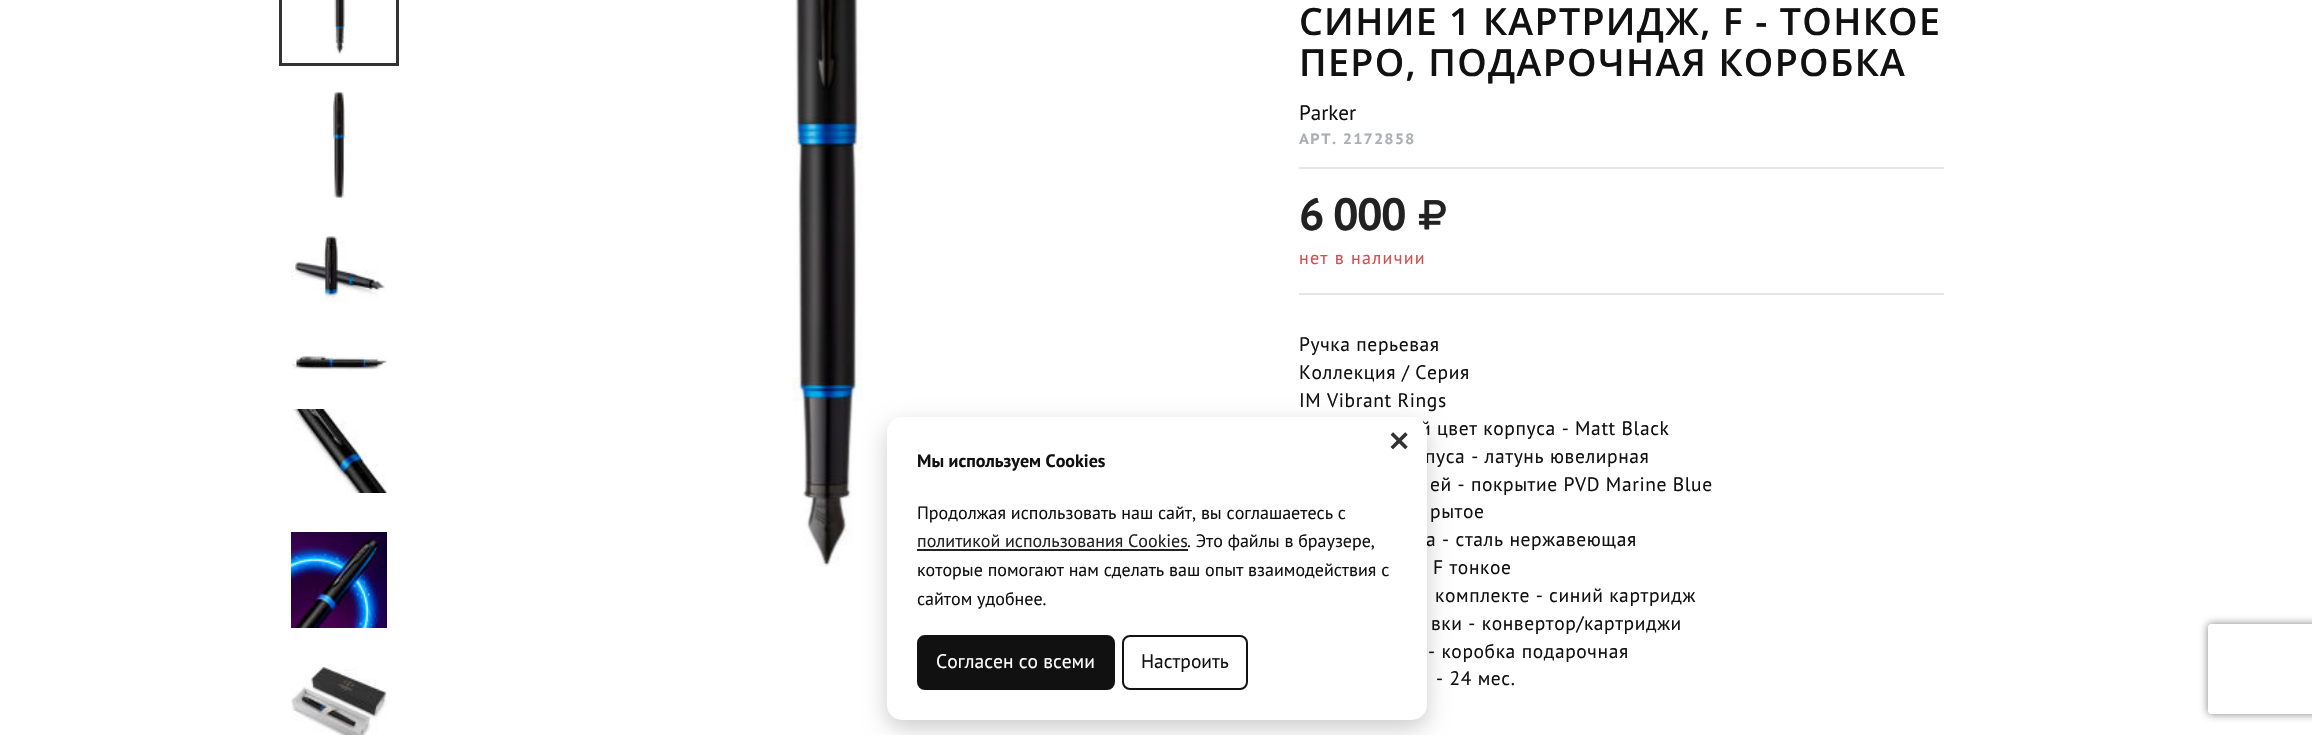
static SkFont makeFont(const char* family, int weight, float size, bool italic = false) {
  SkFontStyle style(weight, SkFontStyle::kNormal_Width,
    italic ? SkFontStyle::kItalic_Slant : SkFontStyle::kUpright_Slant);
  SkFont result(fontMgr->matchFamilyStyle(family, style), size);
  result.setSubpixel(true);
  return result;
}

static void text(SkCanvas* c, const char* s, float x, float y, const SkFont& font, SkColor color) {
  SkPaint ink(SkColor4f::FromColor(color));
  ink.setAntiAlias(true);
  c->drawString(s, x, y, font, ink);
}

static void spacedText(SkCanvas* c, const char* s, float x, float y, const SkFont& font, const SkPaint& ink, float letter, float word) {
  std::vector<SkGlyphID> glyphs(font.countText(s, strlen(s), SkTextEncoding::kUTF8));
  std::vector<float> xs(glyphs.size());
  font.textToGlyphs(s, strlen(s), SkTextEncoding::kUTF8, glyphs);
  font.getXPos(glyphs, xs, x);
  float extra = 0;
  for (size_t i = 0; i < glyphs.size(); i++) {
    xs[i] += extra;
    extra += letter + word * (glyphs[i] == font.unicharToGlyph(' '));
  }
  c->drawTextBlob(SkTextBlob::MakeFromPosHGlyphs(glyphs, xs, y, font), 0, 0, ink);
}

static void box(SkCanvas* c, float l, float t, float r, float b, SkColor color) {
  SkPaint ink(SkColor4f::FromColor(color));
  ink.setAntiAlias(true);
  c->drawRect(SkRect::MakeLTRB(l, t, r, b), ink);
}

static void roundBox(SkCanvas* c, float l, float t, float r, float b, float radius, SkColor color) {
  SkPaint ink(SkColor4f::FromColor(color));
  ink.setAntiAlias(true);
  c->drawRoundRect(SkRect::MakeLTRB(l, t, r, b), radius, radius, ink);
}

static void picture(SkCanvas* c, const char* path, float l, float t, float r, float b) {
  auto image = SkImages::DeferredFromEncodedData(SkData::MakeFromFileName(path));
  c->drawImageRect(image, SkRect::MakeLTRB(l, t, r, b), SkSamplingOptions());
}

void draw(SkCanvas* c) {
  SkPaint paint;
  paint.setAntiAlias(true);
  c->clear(0xffffffff);
  picture(c, "img_08.png", 791, 0, 863, 567);
  paint.setColor(0x33000000);
  paint.setMaskFilter(SkMaskFilter::MakeBlur(kNormal_SkBlurStyle, 11));
  c->drawRoundRect(SkRect::MakeLTRB(887, 425, 1427, 728), 15, 15, paint);
  paint.setMaskFilter(nullptr);
  SkFont face1 = makeFont("PT Sans", 400, 19.5f);
  paint.setColor(0xff111111);
  spacedText(c, "й цвет корпуса - Matt Black", 1420, 435, face1, paint, 0.6f, 0);
  spacedText(c, "пуса - латунь ювелирная", 1425, 463, face1, paint, 0.6f, 0);
  spacedText(c, "а - сталь нержавеющая", 1426, 546, face1, paint, 0.6f, 0);
  roundBox(c, 887, 417, 1427, 720, 15, 0xffffffff);
  SkFont face2 = makeFont("PT Sans", 400, 48);
  text(c, "×", 1387, 457, face2, 0xff333333);
  SkFont face3 = makeFont("PT Sans", 700, 18);
  text(c, "Мы используем Cookies", 917, 467, face3, 0xff111111);
  SkFont face4 = makeFont("PT Sans", 400, 18);
  text(c, "Продолжая использовать наш сайт, вы соглашаетесь с", 917, 519, face4, 0xff111111);
  text(c, "политикой использования Cookies", 917, 547, face4, 0xff222222);
  box(c, 917, 549, 1188, 551, 0xff222222);
  text(c, ". Это файлы в браузере,", 1187, 547, face4, 0xff111111);
  text(c, "которые помогают нам сделать ваш опыт взаимодействия с", 917, 576, face4, 0xff111111);
  text(c, "сайтом удобнее.", 917, 605, face4, 0xff111111);
  c->drawRoundRect(SkRect::MakeLTRB(918, 636, 1114, 689), 7, 7, paint);
  paint.setStyle(SkPaint::kStroke_Style);
  paint.setStrokeWidth(2);
  c->drawRoundRect(SkRect::MakeLTRB(918, 636, 1114, 689), 7, 7, paint);
  text(c, "Согласен со всеми", 936, 668, face1, 0xffffffff);
  c->drawRoundRect(SkRect::MakeLTRB(1123, 636, 1247, 689), 7, 7, paint);
  text(c, "Настроить", 1141, 668, face1, 0xff111111);
  paint.setStrokeWidth(3);
  paint.setColor(0xff333333);
  c->drawRect(SkRect::MakeLTRB(280.5f, -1.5f, 397.5f, 64.5f), paint);
  picture(c, "img_01.png", 334, 0, 345, 54);
  picture(c, "img_02.png", 333, 92, 345, 198);
  picture(c, "img_03.png", 291, 236, 387, 302);
  picture(c, "img_04.png", 291, 356, 387, 370);
  picture(c, "img_05.png", 291, 409, 387, 493);
  picture(c, "img_06.png", 291, 532, 387, 628);
  picture(c, "img_07.png", 291, 667, 387, 735);
  SkFont face5 = makeFont("Open Sans", 600, 37.5f);
  paint.setStyle(SkPaint::kFill_Style);
  paint.setColor(0xff111111);
  spacedText(c, "СИНИЕ 1 КАРТРИДЖ, F - ТОНКОЕ", 1299, 35, face5, paint, 1.35f, 0);
  spacedText(c, "ПЕРО, ПОДАРОЧНАЯ КОРОБКА", 1299, 76, face5, paint, 1.35f, 0);
  SkFont face6 = makeFont("PT Sans", 400, 21);
  text(c, "Parker", 1299, 120, face6, 0xff111111);
  box(c, 1299, 167, 1944, 169, 0xffe3e5e7);
  SkFont face7 = makeFont("PT Sans Caption", 700, 15);
  paint.setColor(0xffacb0b4);
  spacedText(c, "АРТ. 2172858", 1299, 144, face7, paint, 1.5f, 0);
  SkFont face8 = makeFont("PT Sans", 700, 45);
  paint.setColor(0xff222222);
  spacedText(c, "6 000", 1299, 230, face8, paint, -1.5f, 0);
  picture(c, "img_09.png", 1419, 200, 1446, 230);
  paint.setColor(0xffd54d4d);
  spacedText(c, "нет в наличии", 1299, 264, face4, paint, 1.25f, 0);
  box(c, 1299, 293, 1944, 295, 0xffe3e5e7);
  paint.setColor(0xff111111);
  spacedText(c, "Ручка перьевая", 1299, 351, face1, paint, 0.6f, 0);
  spacedText(c, "Коллекция / Серия", 1299, 379, face1, paint, 0.6f, 0);
  spacedText(c, "IM Vibrant Rings", 1299, 407, face1, paint, 0.6f, 0);
  spacedText(c, "ей - покрытие PVD Marine Blue", 1430, 491, face1, paint, 0.6f, 0);
  spacedText(c, "рытое", 1430, 518, face1, paint, 0.6f, 0);
  spacedText(c, "F тонкое", 1433, 574, face1, paint, 0.6f, 0);
  spacedText(c, "комплекте - синий картридж", 1435, 602, face1, paint, 0.6f, 0);
  spacedText(c, "вки - конвертор/картриджи", 1431, 630, face1, paint, 0.6f, 0);
  spacedText(c, "- коробка подарочная", 1428, 658, face1, paint, 0.6f, 0);
  spacedText(c, "- 24 мес.", 1436, 685, face1, paint, 0.6f, 0);
  c->save();
  c->clipPath(SkPathBuilder(SkPathFillType::kEvenOdd).moveTo(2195, 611).lineTo(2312, 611).lineTo(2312, 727).lineTo(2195, 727).close().moveTo(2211, 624).lineTo(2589, 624).cubicTo(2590.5f, 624, 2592, 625.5f, 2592, 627).lineTo(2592, 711).cubicTo(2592, 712.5f, 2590.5f, 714, 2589, 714).lineTo(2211, 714).cubicTo(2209.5f, 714, 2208, 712.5f, 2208, 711).lineTo(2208, 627).cubicTo(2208, 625.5f, 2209.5f, 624, 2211, 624).close().detach(), true);
  paint.setColor(0xff808080);
  paint.setMaskFilter(SkMaskFilter::MakeBlur(kNormal_SkBlurStyle, 4));
  c->drawRoundRect(SkRect::MakeLTRB(2208, 624, 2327, 714), 3, 3, paint);
  paint.setMaskFilter(nullptr);
  c->restore();
}
